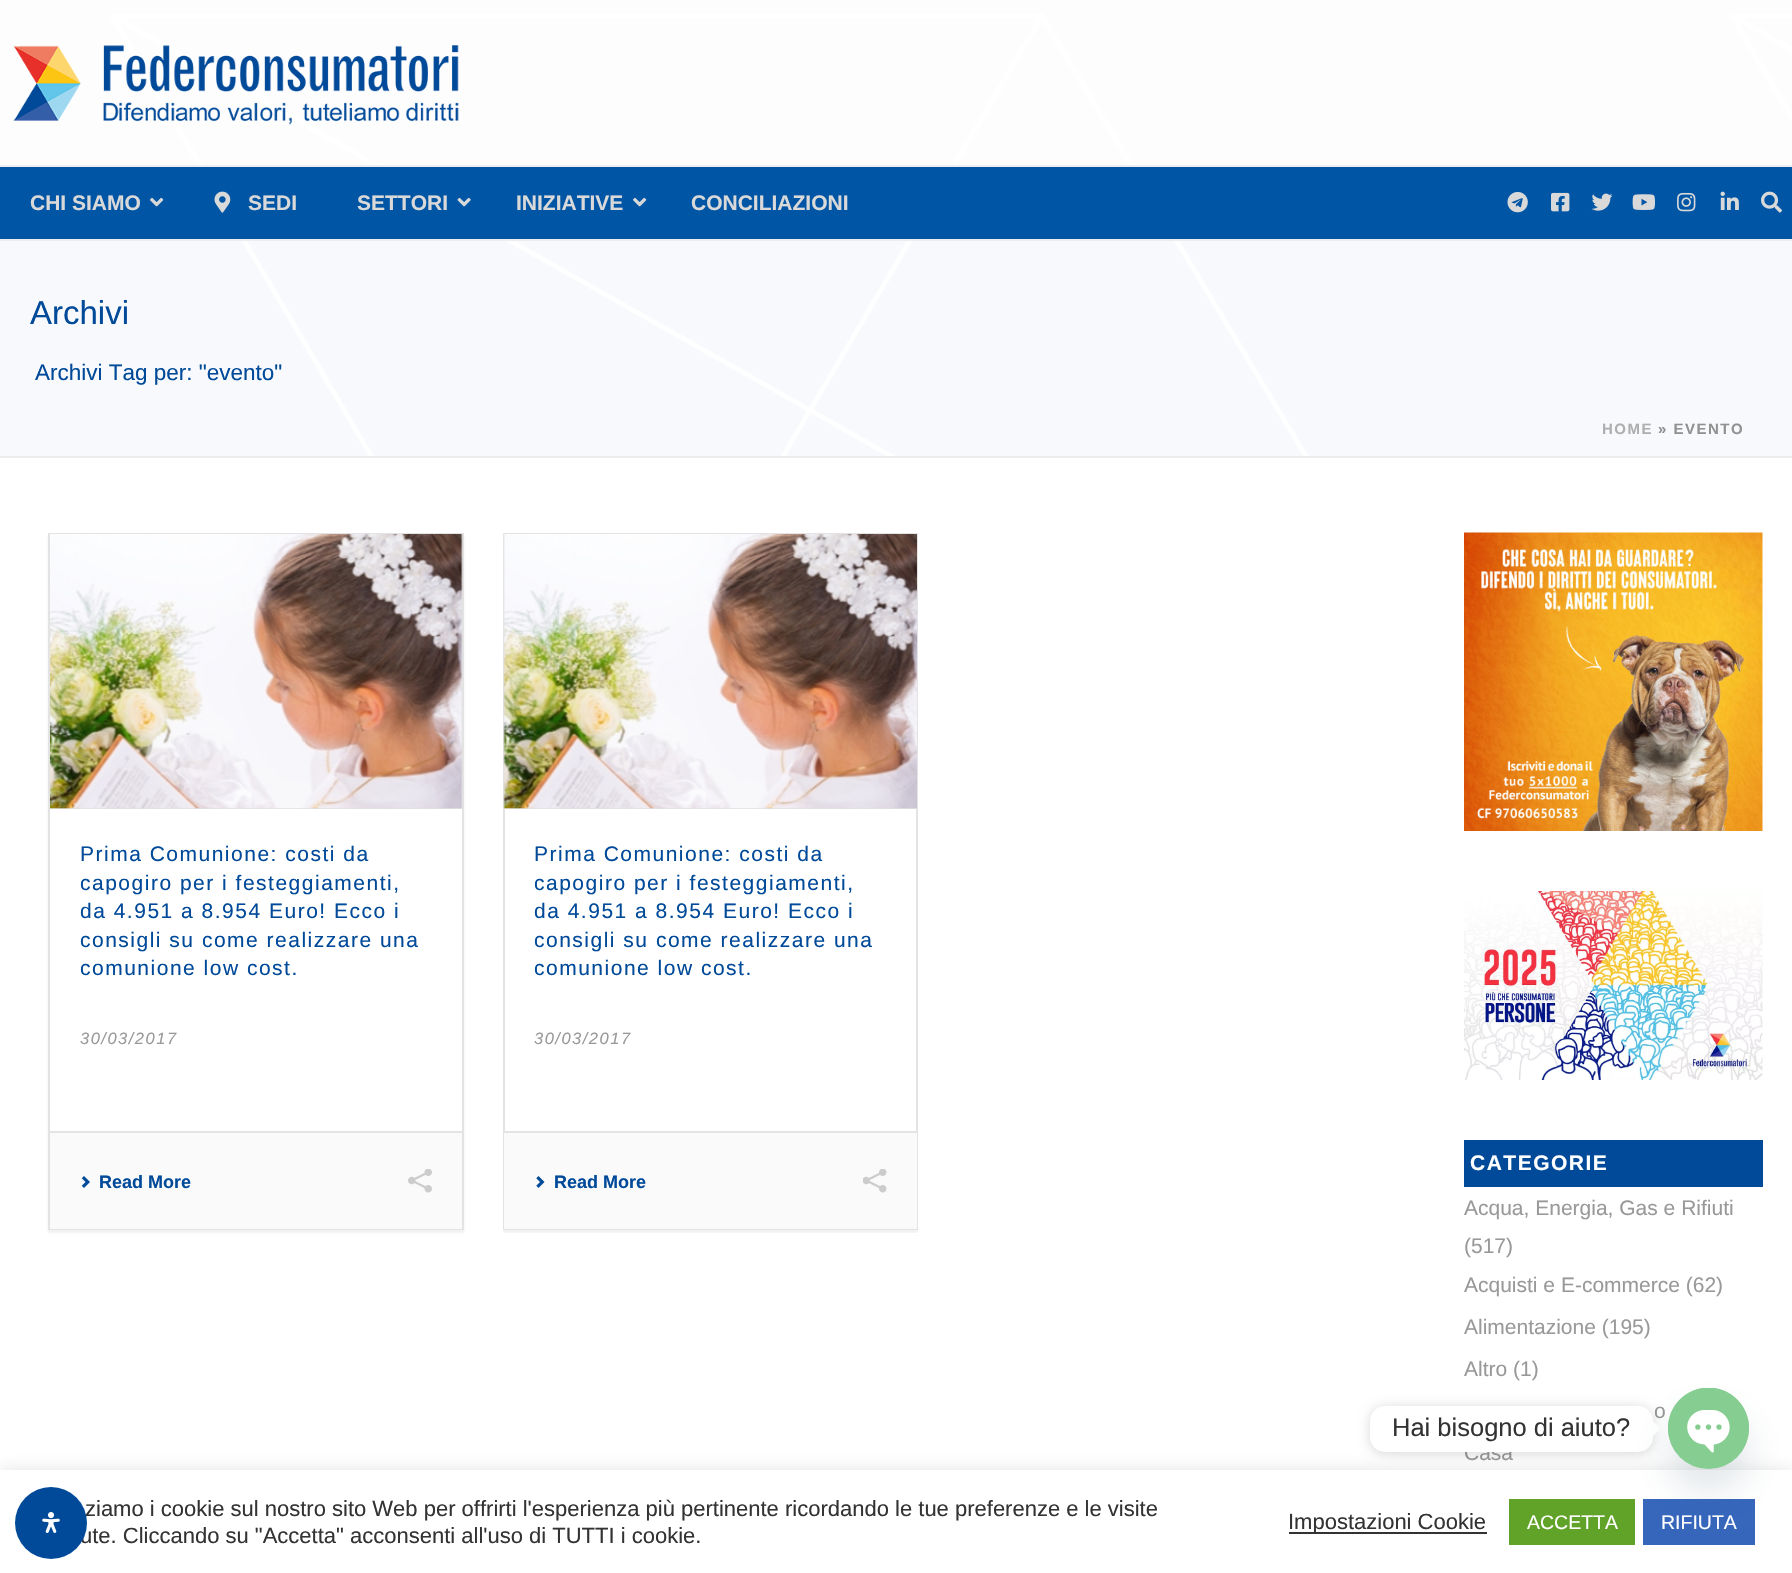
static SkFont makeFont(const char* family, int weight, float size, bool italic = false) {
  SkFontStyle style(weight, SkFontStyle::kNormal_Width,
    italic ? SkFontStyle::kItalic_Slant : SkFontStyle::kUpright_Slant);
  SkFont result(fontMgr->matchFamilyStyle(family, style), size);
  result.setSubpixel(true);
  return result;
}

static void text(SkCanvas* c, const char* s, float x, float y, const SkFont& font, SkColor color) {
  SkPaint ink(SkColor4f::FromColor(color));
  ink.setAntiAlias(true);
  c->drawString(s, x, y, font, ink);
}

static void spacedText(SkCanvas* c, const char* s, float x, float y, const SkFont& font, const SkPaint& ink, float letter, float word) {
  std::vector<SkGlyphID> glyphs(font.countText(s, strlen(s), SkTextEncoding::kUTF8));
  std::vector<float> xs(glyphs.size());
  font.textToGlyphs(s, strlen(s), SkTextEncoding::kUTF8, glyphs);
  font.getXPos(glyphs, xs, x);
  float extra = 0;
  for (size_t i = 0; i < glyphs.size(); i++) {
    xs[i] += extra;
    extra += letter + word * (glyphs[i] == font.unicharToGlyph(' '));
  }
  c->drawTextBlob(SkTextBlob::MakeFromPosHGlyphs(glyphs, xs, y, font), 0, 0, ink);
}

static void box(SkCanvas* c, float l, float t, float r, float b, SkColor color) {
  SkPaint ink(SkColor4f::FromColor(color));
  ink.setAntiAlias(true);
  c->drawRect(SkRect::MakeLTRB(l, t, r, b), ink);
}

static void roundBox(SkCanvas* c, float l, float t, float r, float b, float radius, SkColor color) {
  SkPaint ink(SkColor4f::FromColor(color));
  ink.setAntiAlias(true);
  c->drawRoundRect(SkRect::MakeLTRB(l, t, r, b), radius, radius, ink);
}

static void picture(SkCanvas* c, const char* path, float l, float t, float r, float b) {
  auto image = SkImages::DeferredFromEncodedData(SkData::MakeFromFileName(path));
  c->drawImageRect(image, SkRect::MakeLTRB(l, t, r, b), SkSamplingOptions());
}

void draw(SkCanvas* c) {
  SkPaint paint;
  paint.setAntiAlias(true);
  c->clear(0xfff7f9fc);
  picture(c, "img_01.png", 110, 13, 1792, 456);
  box(c, 0, 456, 1792, 458, 0xffededed);
  box(c, 0, 239, 1792, 241, 0xffededed);
  box(c, 0, 0, 1792, 165, 0xb3ffffff);
  picture(c, "img_02.png", 13, 45, 459, 125);
  box(c, 0, 167, 1792, 239, 0xff0055a5);
  box(c, 0, 165, 1792, 167, 0xffededed);
  SkFont face1 = makeFont("Liberation Sans", 700, 21);
  text(c, "CHI SIAMO", 30, 210, face1, 0xffd9d9d9);
  picture(c, "img_03.png", 150, 197, 164, 207);
  picture(c, "img_04.png", 214, 191, 231, 213);
  text(c, "SEDI", 248, 210, face1, 0xffd9d9d9);
  text(c, "SETTORI", 357, 210, face1, 0xffd9d9d9);
  picture(c, "img_05.png", 457, 197, 471, 207);
  text(c, "INIZIATIVE", 516, 210, face1, 0xffd9d9d9);
  picture(c, "img_03.png", 633, 197, 647, 207);
  text(c, "CONCILIAZIONI", 691, 210, face1, 0xffd9d9d9);
  picture(c, "img_06.png", 1507, 192, 1528, 213);
  picture(c, "img_07.png", 1551, 192, 1570, 212);
  picture(c, "img_08.png", 1591, 193, 1613, 211);
  picture(c, "img_09.png", 1632, 194, 1655, 210);
  picture(c, "img_10.png", 1677, 192, 1696, 212);
  picture(c, "img_11.png", 1720, 191, 1739, 210);
  picture(c, "img_12.png", 1761, 191, 1782, 213);
  SkFont face2 = makeFont("Liberation Sans", 400, 33);
  text(c, "Archivi", 30, 324, face2, 0xff004a99);
  SkFont face3 = makeFont("Liberation Sans", 400, 22.5f);
  text(c, "Archivi Tag per: \"evento\"", 35, 380, face3, 0xff004a99);
  SkFont face4 = makeFont("Liberation Sans", 700, 15);
  paint.setColor(0xffafafaf);
  spacedText(c, "HOME", 1602, 434, face4, paint, 1.5f, 0);
  paint.setColor(0xff919191);
  spacedText(c, "» EVENTO", 1658, 434, face4, paint, 1.5f, 0);
  box(c, 0, 458, 1792, 1470, 0xffffffff);
  paint.setColor(0x0d000000);
  paint.setMaskFilter(SkMaskFilter::MakeBlur(kNormal_SkBlurStyle, 1));
  c->drawRect(SkRect::MakeLTRB(48, 536, 464, 1233), paint);
  paint.setMaskFilter(nullptr);
  box(c, 50, 809, 462, 1131, 0xffffffff);
  paint.setStyle(SkPaint::kStroke_Style);
  paint.setStrokeWidth(2);
  paint.setColor(0xffe3e3e3);
  c->drawRect(SkRect::MakeLTRB(49, 534, 463, 1229), paint);
  box(c, 50, 534, 462, 809, 0xffe0e0e0);
  picture(c, "img_13.png", 50, 534, 463, 809);
  SkFont face5 = makeFont("Liberation Sans", 400, 21);
  paint.setStyle(SkPaint::kFill_Style);
  paint.setColor(0xff004a99);
  spacedText(c, "Prima Comunione: costi da", 80, 861, face5, paint, 1.5f, 0);
  spacedText(c, "capogiro per i festeggiamenti,", 80, 890, face5, paint, 1.5f, 0);
  spacedText(c, "da 4.951 a 8.954 Euro! Ecco i", 80, 918, face5, paint, 1.5f, 0);
  spacedText(c, "consigli su come realizzare una", 80, 947, face5, paint, 1.5f, 0);
  spacedText(c, "comunione low cost.", 80, 975, face5, paint, 1.5f, 0);
  SkFont face6 = makeFont("Liberation Sans", 400, 16.5f, true);
  paint.setColor(0xff999999);
  spacedText(c, "30/03/2017", 80, 1044, face6, paint, 1.5f, 0);
  box(c, 50, 1133, 462, 1229, 0xfffafafa);
  box(c, 50, 1131, 462, 1133, 0xffe3e3e3);
  picture(c, "img_14.png", 81, 1176, 90, 1188);
  SkFont face7 = makeFont("Liberation Sans", 700, 18);
  text(c, "Read More", 99, 1188, face7, 0xff004a99);
  picture(c, "img_15.png", 408, 1169, 432, 1193);
  c->save();
  c->clipRect(SkRect::MakeLTRB(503, 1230, 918, 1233));
  paint.setColor(0x0d000000);
  paint.setMaskFilter(SkMaskFilter::MakeBlur(kNormal_SkBlurStyle, 1));
  c->drawRect(SkRect::MakeLTRB(503, 536, 918, 1233), paint);
  paint.setMaskFilter(nullptr);
  c->restore();
  paint.setStyle(SkPaint::kStroke_Style);
  paint.setColor(0xffe3e3e3);
  c->drawRect(SkRect::MakeLTRB(504, 534, 917, 1229), paint);
  box(c, 504, 534, 917, 809, 0xffe0e0e0);
  picture(c, "img_16.png", 503, 534, 917, 809);
  paint.setStyle(SkPaint::kFill_Style);
  paint.setColor(0xff004a99);
  spacedText(c, "Prima Comunione: costi da", 534, 861, face5, paint, 1.5f, 0);
  spacedText(c, "capogiro per i festeggiamenti,", 534, 890, face5, paint, 1.5f, 0);
  spacedText(c, "da 4.951 a 8.954 Euro! Ecco i", 534, 918, face5, paint, 1.5f, 0);
  spacedText(c, "consigli su come realizzare una", 534, 947, face5, paint, 1.5f, 0);
  spacedText(c, "comunione low cost.", 534, 975, face5, paint, 1.5f, 0);
  paint.setColor(0xff999999);
  spacedText(c, "30/03/2017", 534, 1044, face6, paint, 1.5f, 0);
  box(c, 504, 1133, 917, 1229, 0xfffafafa);
  box(c, 504, 1131, 917, 1133, 0xffe3e3e3);
  picture(c, "img_17.png", 536, 1176, 545, 1188);
  text(c, "Read More", 554, 1188, face7, 0xff004a99);
  picture(c, "img_18.png", 863, 1169, 887, 1193);
  picture(c, "img_19.png", 1464, 532, 1763, 831);
  picture(c, "img_20.png", 1464, 891, 1763, 1080);
  box(c, 1464, 1140, 1763, 1187, 0xff004a99);
  paint.setColor(0xffffffff);
  spacedText(c, "CATEGORIE", 1470, 1170, face1, paint, 1.5f, 0);
  text(c, "Acqua, Energia, Gas e Rifiuti", 1464, 1215, face5, 0xff999999);
  text(c, "(517)", 1464, 1253, face5, 0xff999999);
  text(c, "Acquisti e E-commerce (62)", 1464, 1292, face5, 0xff999999);
  text(c, "Alimentazione (195)", 1464, 1334, face5, 0xff999999);
  text(c, "Altro (1)", 1464, 1376, face5, 0xff999999);
  text(c, "o", 1654, 1418, face5, 0xff999999);
  text(c, "Casa", 1464, 1460, face5, 0xff999999);
  paint.setColor(0x4dacabab);
  paint.setMaskFilter(SkMaskFilter::MakeBlur(kNormal_SkBlurStyle, 7.5f));
  c->drawRect(SkRect::MakeLTRB(0, 1469, 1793, 1572), paint);
  paint.setMaskFilter(nullptr);
  box(c, 0, 1470, 1792, 1573, 0xffffffff);
  paint.setColor(0x26000000);
  paint.setMaskFilter(SkMaskFilter::MakeBlur(kNormal_SkBlurStyle, 6));
  c->drawRoundRect(SkRect::MakeLTRB(1370, 1407, 1653, 1454), 15, 15, paint);
  paint.setMaskFilter(nullptr);
  roundBox(c, 1370, 1406, 1653, 1452, 15, 0xffffffff);
  SkFont face8 = makeFont("Liberation Sans", 400, 25.5f);
  text(c, "Hai bisogno di aiuto?", 1392, 1436, face8, 0xff333333);
  paint.setColor(0xffffffff);
  c->drawPath(SkPathBuilder().moveTo(1653, 1436).lineTo(1653, 1421).lineTo(1660.5f, 1429).close().detach(), paint);
  box(c, 1509, 1499, 1635, 1545, 0xff61a229);
  box(c, 1643, 1499, 1755, 1545, 0xff3566bb);
  paint.setColor(0x2949687e);
  paint.setMaskFilter(SkMaskFilter::MakeBlur(kNormal_SkBlurStyle, 18));
  c->drawRoundRect(SkRect::MakeLTRB(1668, 1412, 1749, 1493), 40.5f, 40.5f, paint);
  paint.setMaskFilter(nullptr);
  paint.setColor(0xff86cd91);
  c->drawCircle(1708.5f, 1428.5f, 40.5f, paint);
  picture(c, "img_21.png", 1668, 1388, 1749, 1453);
  SkFont face9 = makeFont("Liberation Sans", 400, 22);
  text(c, "ziamo i cookie sul nostro sito Web per offrirti l'esperienza più pertinente ricordando le tue preferenze e le visite", 85, 1516, face9, 0xff333333);
  text(c, "ute. Cliccando su \"Accetta\" acconsenti all'uso di TUTTI i cookie.", 80, 1543, face9, 0xff333333);
  paint.setColor(0xff004a99);
  c->drawCircle(51, 1523, 36, paint);
  picture(c, "img_22.png", 42, 1512, 60, 1533);
  box(c, 1289, 1532, 1487, 1534, 0xff333333);
  text(c, "Impostazioni Cookie", 1288, 1529, face9, 0xff333333);
  SkFont face10 = makeFont("Liberation Sans", 400, 19.5f);
  text(c, "ACCETTA", 1527, 1529, face10, 0xffffffff);
  text(c, "RIFIUTA", 1661, 1529, face10, 0xffffffff);
}
